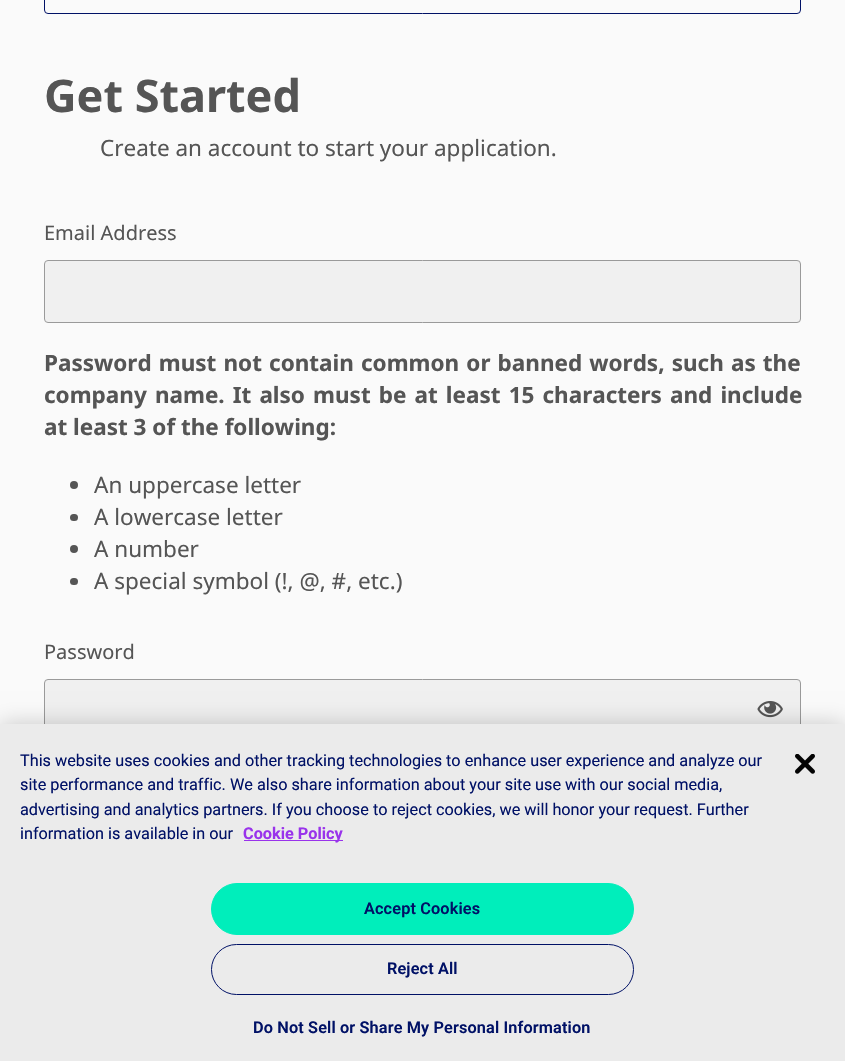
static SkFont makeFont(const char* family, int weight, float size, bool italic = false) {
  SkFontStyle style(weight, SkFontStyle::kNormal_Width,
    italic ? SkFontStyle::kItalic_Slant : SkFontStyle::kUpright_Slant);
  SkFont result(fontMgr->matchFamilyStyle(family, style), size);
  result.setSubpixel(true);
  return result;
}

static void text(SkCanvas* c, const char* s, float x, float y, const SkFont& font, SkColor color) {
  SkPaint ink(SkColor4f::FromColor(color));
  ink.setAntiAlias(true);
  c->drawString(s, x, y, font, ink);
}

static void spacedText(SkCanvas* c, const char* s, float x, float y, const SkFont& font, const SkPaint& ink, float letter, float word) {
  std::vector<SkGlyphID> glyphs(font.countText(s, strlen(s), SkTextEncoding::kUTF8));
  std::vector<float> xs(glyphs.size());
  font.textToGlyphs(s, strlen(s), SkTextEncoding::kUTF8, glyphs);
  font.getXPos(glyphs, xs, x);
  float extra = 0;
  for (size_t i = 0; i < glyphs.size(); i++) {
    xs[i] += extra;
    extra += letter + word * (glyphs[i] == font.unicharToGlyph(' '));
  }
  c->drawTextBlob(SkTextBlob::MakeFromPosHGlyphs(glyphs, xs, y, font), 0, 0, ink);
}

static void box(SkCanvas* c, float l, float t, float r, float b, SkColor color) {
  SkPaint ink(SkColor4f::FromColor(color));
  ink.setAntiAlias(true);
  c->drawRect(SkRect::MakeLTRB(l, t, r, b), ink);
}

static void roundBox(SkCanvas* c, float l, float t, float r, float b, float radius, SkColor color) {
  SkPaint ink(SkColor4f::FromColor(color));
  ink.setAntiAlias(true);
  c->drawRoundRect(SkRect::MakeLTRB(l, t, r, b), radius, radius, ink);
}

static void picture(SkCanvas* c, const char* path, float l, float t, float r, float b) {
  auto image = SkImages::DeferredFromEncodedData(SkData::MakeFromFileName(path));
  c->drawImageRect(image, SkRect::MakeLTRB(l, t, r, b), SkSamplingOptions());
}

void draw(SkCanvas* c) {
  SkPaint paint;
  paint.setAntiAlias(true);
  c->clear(0xfffafafa);
  paint.setStyle(SkPaint::kStroke_Style);
  paint.setStrokeWidth(1);
  paint.setColor(0xff001166);
  c->drawRoundRect(SkRect::MakeLTRB(44.5f, -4.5f, 800.5f, 13.5f), 3.5f, 3.5f, paint);
  SkFont face1 = makeFont("Noto Sans", 700, 45);
  text(c, "Get Started", 44, 112, face1, 0xff555555);
  SkFont face2 = makeFont("Noto Sans", 400, 22.5f);
  text(c, "Create an account to start your application.", 100, 156, face2, 0xff555555);
  SkFont face3 = makeFont("Noto Sans", 400, 20);
  text(c, "Email Address", 44, 240, face3, 0xff555555);
  paint.setStyle(SkPaint::kFill_Style);
  paint.setColor(0xfff0f0f0);
  c->drawRoundRect(SkRect::MakeLTRB(44.5f, 260.5f, 800.5f, 322.5f), 3.5f, 3.5f, paint);
  paint.setStyle(SkPaint::kStroke_Style);
  paint.setColor(0xff9a9a9a);
  c->drawRoundRect(SkRect::MakeLTRB(44.5f, 260.5f, 800.5f, 322.5f), 3.5f, 3.5f, paint);
  SkFont face4 = makeFont("Noto Sans", 700, 22.5f);
  paint.setStyle(SkPaint::kFill_Style);
  paint.setColor(0xff555555);
  spacedText(c, "Password must not contain common or banned words, such as the", 44, 371, face4, paint, 0, 1.25f);
  spacedText(c, "company name. It also must be at least 15 characters and include", 44, 403, face4, paint, 0, 2.25f);
  text(c, "at least 3 of the following:", 44, 435, face4, 0xff555555);
  c->drawCircle(74, 485, 4, paint);
  text(c, "An uppercase letter", 94, 493, face2, 0xff555555);
  roundBox(c, 70, 514, 78, 521, 3.5f, 0xff555555);
  text(c, "A lowercase letter", 94, 525, face2, 0xff555555);
  c->drawCircle(74, 549, 4, paint);
  text(c, "A number", 94, 557, face2, 0xff555555);
  roundBox(c, 70, 578, 78, 585, 3.5f, 0xff555555);
  text(c, "A special symbol (!, @, #, etc.)", 94, 589, face2, 0xff555555);
  text(c, "Password", 44, 659, face3, 0xff555555);
  paint.setColor(0xfff0f0f0);
  c->drawRoundRect(SkRect::MakeLTRB(44.5f, 679.5f, 800.5f, 740.5f), 3.5f, 3.5f, paint);
  paint.setStyle(SkPaint::kStroke_Style);
  paint.setColor(0xff9a9a9a);
  c->drawRoundRect(SkRect::MakeLTRB(44.5f, 679.5f, 800.5f, 740.5f), 3.5f, 3.5f, paint);
  picture(c, "img_01.png", 757, 701, 783, 718);
  paint.setStyle(SkPaint::kFill_Style);
  paint.setColor(0x33000000);
  paint.setMaskFilter(SkMaskFilter::MakeBlur(kNormal_SkBlurStyle, 11));
  c->drawRect(SkRect::MakeLTRB(0, 724, 845, 1061), paint);
  paint.setMaskFilter(nullptr);
  box(c, 0, 724, 845, 1061, 0xffebebeb);
  SkFont face5 = makeFont("Roboto", 400, 16.25f);
  text(c, "This website uses cookies and other tracking technologies to enhance user experience and analyze our", 20, 766, face5, 0xff001166);
  text(c, "site performance and traffic. We also share information about your site use with our social media,", 20, 790, face5, 0xff001166);
  text(c, "advertising and analytics partners. If you choose to reject cookies, we will honor your request. Further", 20, 815, face5, 0xff001166);
  text(c, "information is available in our", 20, 839, face5, 0xff001166);
  box(c, 244, 840, 343, 841, 0xff9933eb);
  SkFont face6 = makeFont("Roboto", 700, 16.25f);
  text(c, "Cookie Policy", 243, 839, face6, 0xff9933eb);
  paint.setColor(0xff00eebb);
  c->drawRoundRect(SkRect::MakeLTRB(211.5f, 883.5f, 633.5f, 934.5f), 25.5f, 25.5f, paint);
  paint.setStyle(SkPaint::kStroke_Style);
  c->drawRoundRect(SkRect::MakeLTRB(211.5f, 883.5f, 633.5f, 934.5f), 25.5f, 25.5f, paint);
  SkFont face7 = makeFont("Roboto", 600, 16.25f);
  paint.setStyle(SkPaint::kFill_Style);
  paint.setColor(0xff001166);
  spacedText(c, "Accept Cookies", 364, 914, face7, paint, 0.15f, 0);
  paint.setStyle(SkPaint::kStroke_Style);
  c->drawRoundRect(SkRect::MakeLTRB(211.5f, 944.5f, 633.5f, 994.5f), 25, 25, paint);
  paint.setStyle(SkPaint::kFill_Style);
  spacedText(c, "Reject All", 387, 974, face7, paint, 0.15f, 0);
  spacedText(c, "Do Not Sell or Share My Personal Information", 253, 1033, face7, paint, 0.15f, 0);
  picture(c, "img_02.png", 795, 754, 815, 774);
}
